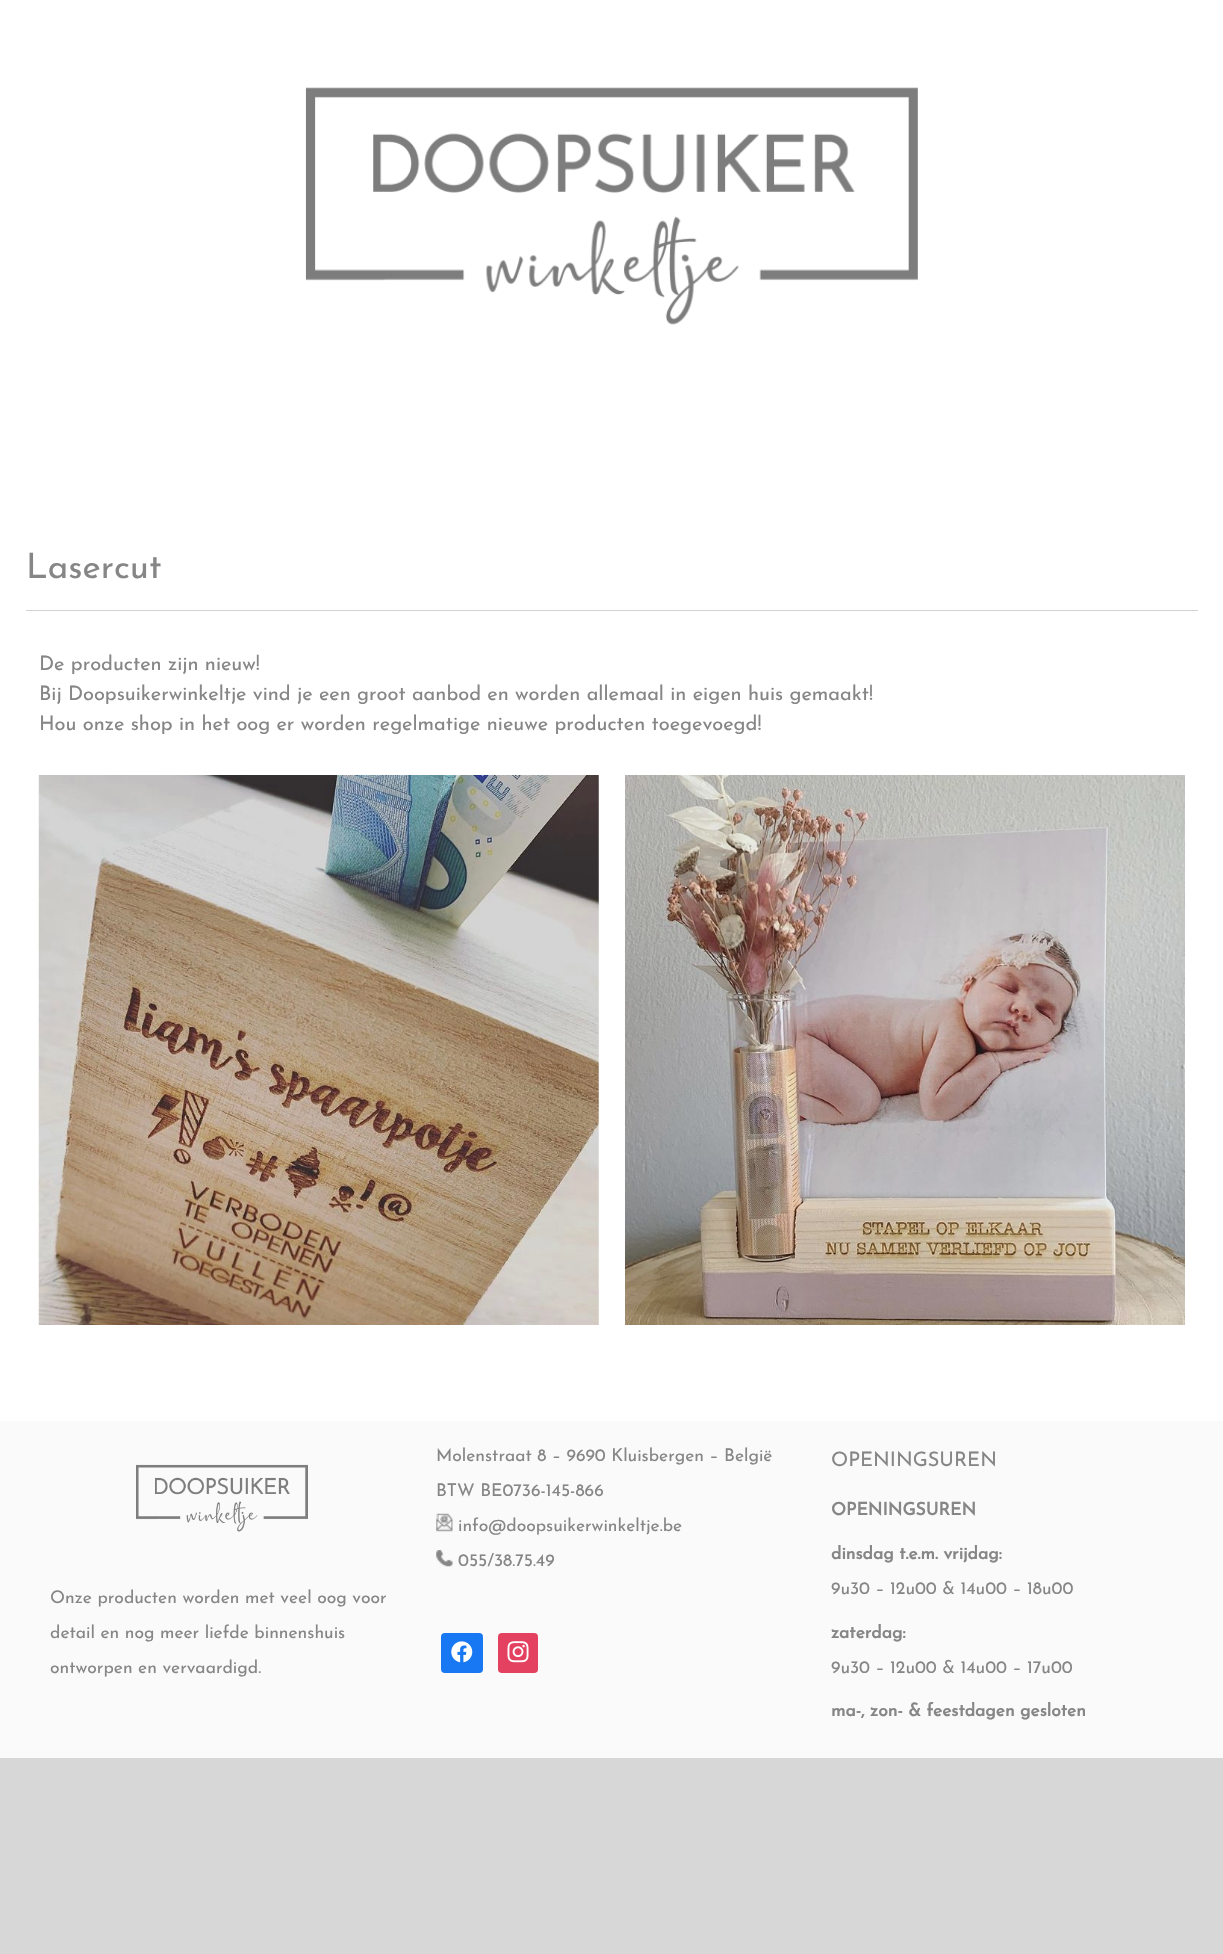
static SkFont makeFont(const char* family, int weight, float size, bool italic = false) {
  SkFontStyle style(weight, SkFontStyle::kNormal_Width,
    italic ? SkFontStyle::kItalic_Slant : SkFontStyle::kUpright_Slant);
  SkFont result(fontMgr->matchFamilyStyle(family, style), size);
  result.setSubpixel(true);
  return result;
}

static void text(SkCanvas* c, const char* s, float x, float y, const SkFont& font, SkColor color) {
  SkPaint ink(SkColor4f::FromColor(color));
  ink.setAntiAlias(true);
  c->drawString(s, x, y, font, ink);
}

static void box(SkCanvas* c, float l, float t, float r, float b, SkColor color) {
  SkPaint ink(SkColor4f::FromColor(color));
  ink.setAntiAlias(true);
  c->drawRect(SkRect::MakeLTRB(l, t, r, b), ink);
}

static void roundBox(SkCanvas* c, float l, float t, float r, float b, float radius, SkColor color) {
  SkPaint ink(SkColor4f::FromColor(color));
  ink.setAntiAlias(true);
  c->drawRoundRect(SkRect::MakeLTRB(l, t, r, b), radius, radius, ink);
}

static void picture(SkCanvas* c, const char* path, float l, float t, float r, float b) {
  auto image = SkImages::DeferredFromEncodedData(SkData::MakeFromFileName(path));
  c->drawImageRect(image, SkRect::MakeLTRB(l, t, r, b), SkSamplingOptions());
}

void draw(SkCanvas* c) {
  SkPaint paint;
  paint.setAntiAlias(true);
  c->clear(0xffd7d7d7);
  box(c, 0, 0, 1223, 1421, 0xffffffff);
  picture(c, "img_01.png", 305, 87, 918, 325);
  SkFont face1 = makeFont("Josefin Sans", 100, 35);
  text(c, "Lasercut", 26, 578, face1, 0xff868686);
  box(c, 26, 610, 1198, 611, 0xffd3d3d3);
  SkFont face2 = makeFont("Josefin Sans", 100, 20);
  text(c, "De producten zijn nieuw!", 39, 670, face2, 0xff868686);
  text(c, "Bij Doopsuikerwinkeltje vind je een groot aanbod en worden allemaal in eigen huis gemaakt!", 39, 700, face2, 0xff868686);
  text(c, "Hou onze shop in het oog er worden regelmatige nieuwe producten toegevoegd!", 39, 730, face2, 0xff868686);
  picture(c, "img_02.png", 38, 775, 599, 1325);
  picture(c, "img_03.png", 625, 775, 1185, 1325);
  box(c, 0, 1421, 1223, 1758, 0xfffafafa);
  picture(c, "img_04.png", 136, 1464, 308, 1532);
  SkFont face3 = makeFont("Josefin Sans", 100, 17.5f);
  text(c, "Onze producten worden met veel oog voor", 50, 1603, face3, 0xff868686);
  text(c, "detail en nog meer liefde binnenshuis", 50, 1638, face3, 0xff868686);
  text(c, "ontworpen en vervaardigd.", 50, 1673, face3, 0xff868686);
  text(c, "Molenstraat 8 – 9690 Kluisbergen – België", 436, 1461, face3, 0xff868686);
  text(c, "BTW BE0736-145-866", 436, 1496, face3, 0xff868686);
  picture(c, "img_05.png", 436, 1513, 453, 1532);
  text(c, "info@doopsuikerwinkeltje.be", 458, 1531, face3, 0xff868686);
  picture(c, "img_06.png", 436, 1550, 453, 1567);
  text(c, "055/38.75.49", 458, 1566, face3, 0xff868686);
  roundBox(c, 441, 1633, 483, 1673, 4, 0xff1877f2);
  picture(c, "img_07.png", 451, 1641, 473, 1663);
  roundBox(c, 498, 1633, 538, 1673, 4, 0xffe4405f);
  picture(c, "img_08.png", 507, 1641, 529, 1663);
  text(c, "OPENINGSUREN", 831, 1466, face2, 0xff868686);
  SkFont face4 = makeFont("Josefin Sans", 700, 17.5f);
  text(c, "OPENINGSUREN", 831, 1515, face4, 0xff868686);
  text(c, "dinsdag t.e.m. vrijdag:", 831, 1559, face4, 0xff868686);
  text(c, "9u30 – 12u00 & 14u00 – 18u00", 831, 1594, face3, 0xff868686);
  text(c, "zaterdag:", 831, 1638, face4, 0xff868686);
  text(c, "9u30 – 12u00 & 14u00 – 17u00", 831, 1673, face3, 0xff868686);
  text(c, "ma-, zon- & feestdagen gesloten", 831, 1716, face4, 0xff868686);
}
